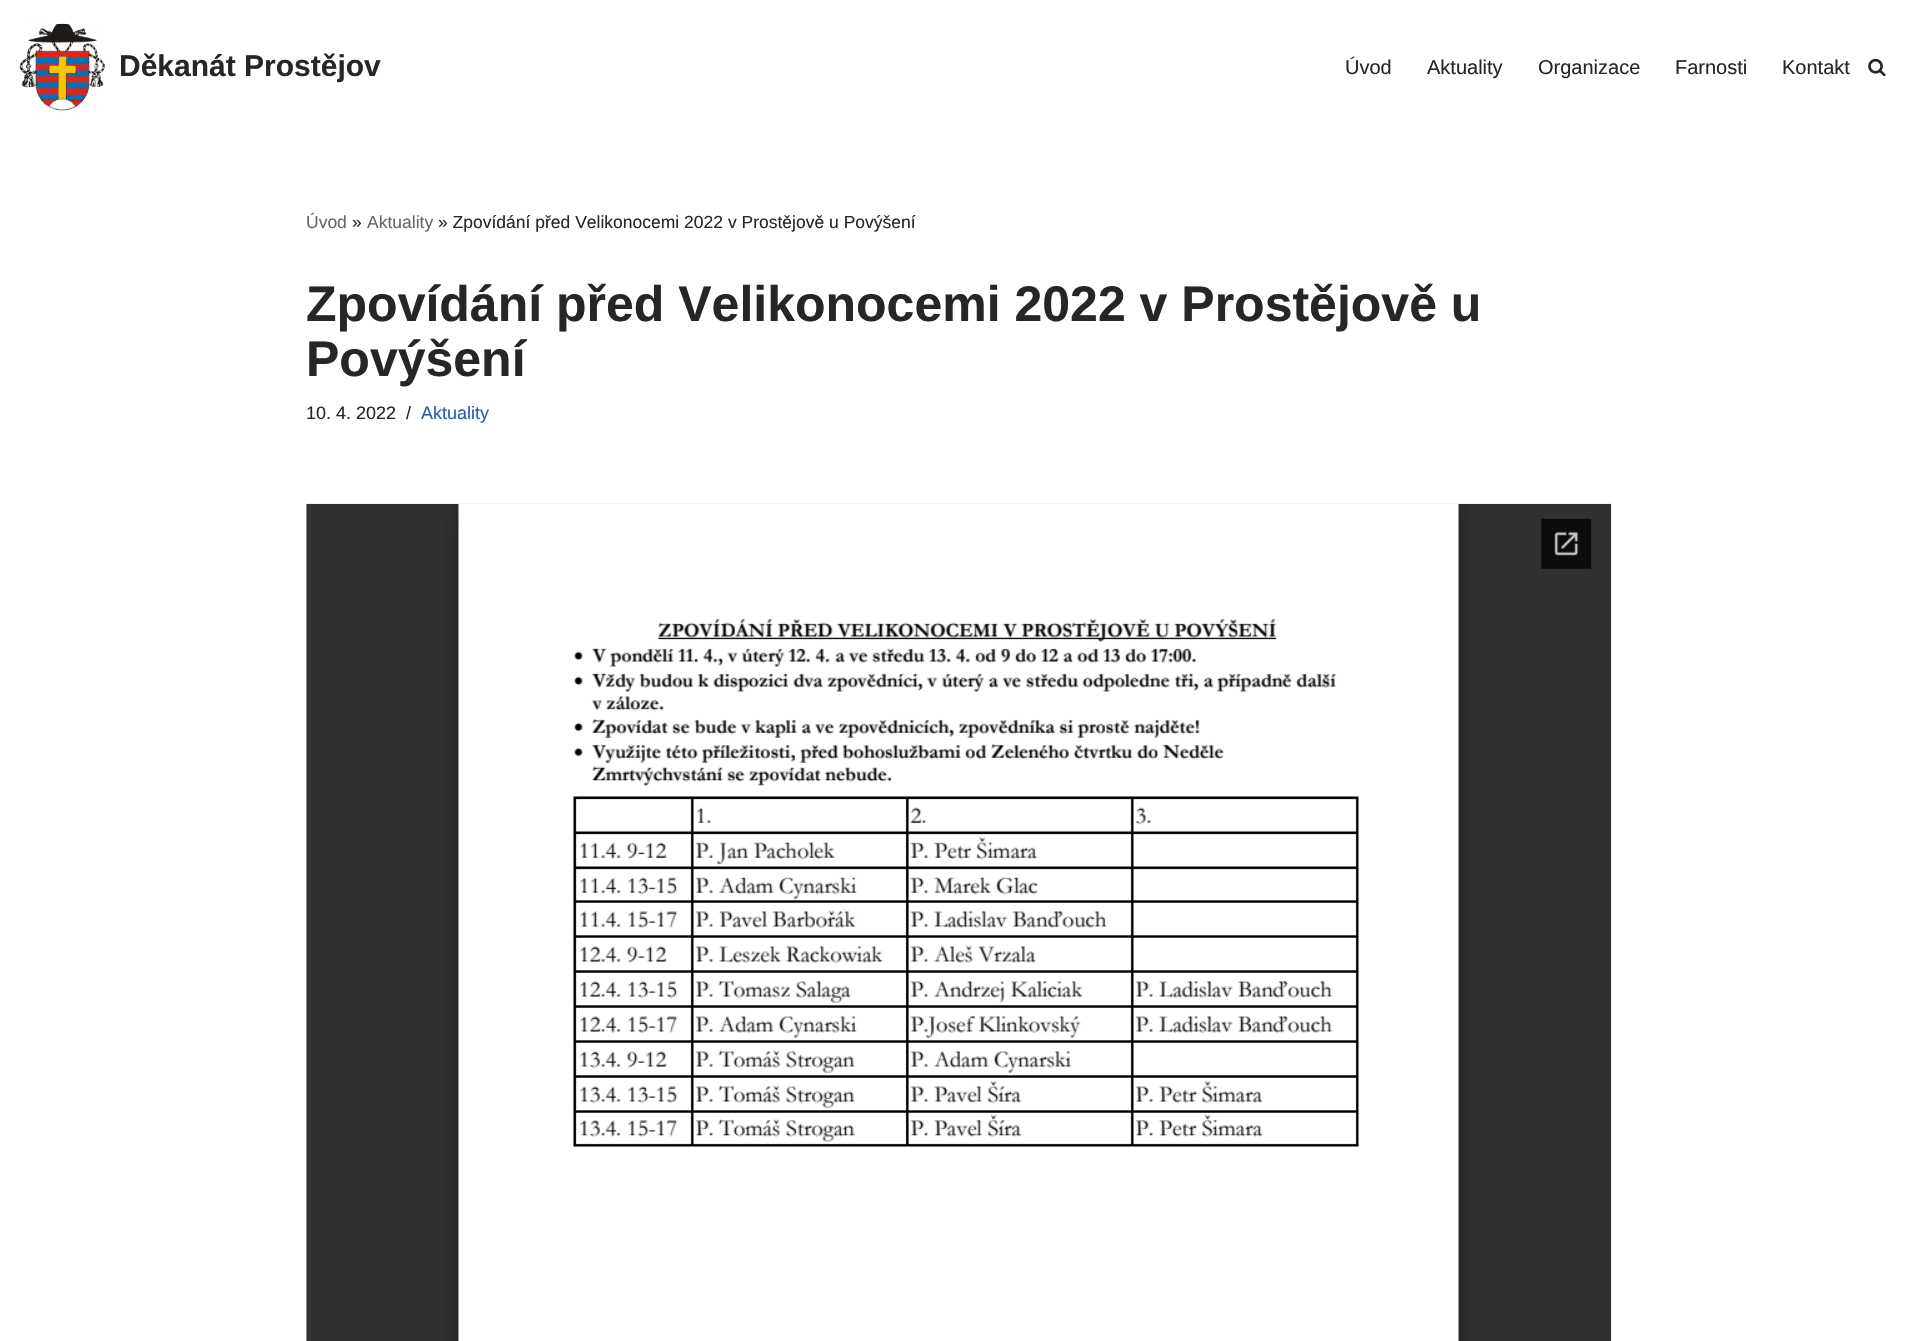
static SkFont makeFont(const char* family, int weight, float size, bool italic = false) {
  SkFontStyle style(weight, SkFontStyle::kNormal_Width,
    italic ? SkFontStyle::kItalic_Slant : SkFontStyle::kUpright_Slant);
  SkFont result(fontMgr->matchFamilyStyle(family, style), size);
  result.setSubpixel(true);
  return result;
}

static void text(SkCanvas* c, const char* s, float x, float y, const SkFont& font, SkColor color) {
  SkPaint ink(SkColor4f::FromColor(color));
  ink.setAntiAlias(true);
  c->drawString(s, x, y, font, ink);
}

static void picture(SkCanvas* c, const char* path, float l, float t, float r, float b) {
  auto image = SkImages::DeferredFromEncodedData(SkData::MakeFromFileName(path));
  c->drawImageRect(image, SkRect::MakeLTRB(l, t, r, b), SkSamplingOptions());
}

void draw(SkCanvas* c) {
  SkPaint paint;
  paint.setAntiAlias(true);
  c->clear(0xffffffff);
  picture(c, "img_01.png", 19, 23, 105, 111);
  SkFont face1 = makeFont("Liberation Sans", 700, 30);
  text(c, "Děkanát Prostějov", 119, 76, face1, 0xff272626);
  SkFont face2 = makeFont("Liberation Sans", 400, 20);
  text(c, "Úvod", 1345, 74, face2, 0xff272626);
  text(c, "Aktuality", 1427, 74, face2, 0xff272626);
  text(c, "Organizace", 1538, 74, face2, 0xff272626);
  text(c, "Farnosti", 1675, 74, face2, 0xff272626);
  text(c, "Kontakt", 1782, 74, face2, 0xff272626);
  picture(c, "img_02.png", 1868, 58, 1886, 76);
  SkFont face3 = makeFont("Liberation Sans", 400, 17.5f);
  text(c, "Úvod", 306, 228, face3, 0xff676767);
  text(c, "»", 352, 228, face3, 0xff272626);
  text(c, "Aktuality", 367, 228, face3, 0xff676767);
  text(c, "» Zpovídání před Velikonocemi 2022 v Prostějově u Povýšení", 438, 228, face3, 0xff272626);
  SkFont face4 = makeFont("Liberation Sans", 700, 50);
  text(c, "Zpovídání před Velikonocemi 2022 v Prostějově u", 306, 321, face4, 0xff272626);
  text(c, "Povýšení", 306, 376, face4, 0xff272626);
  SkFont face5 = makeFont("Liberation Sans", 400, 18);
  text(c, "10. 4. 2022", 306, 419, face5, 0xff272626);
  text(c, "/", 406, 419, face5, 0xff272626);
  text(c, "Aktuality", 421, 419, face5, 0xff2f5aae);
  picture(c, "img_03.png", 306, 503, 1612, 1341);
}
